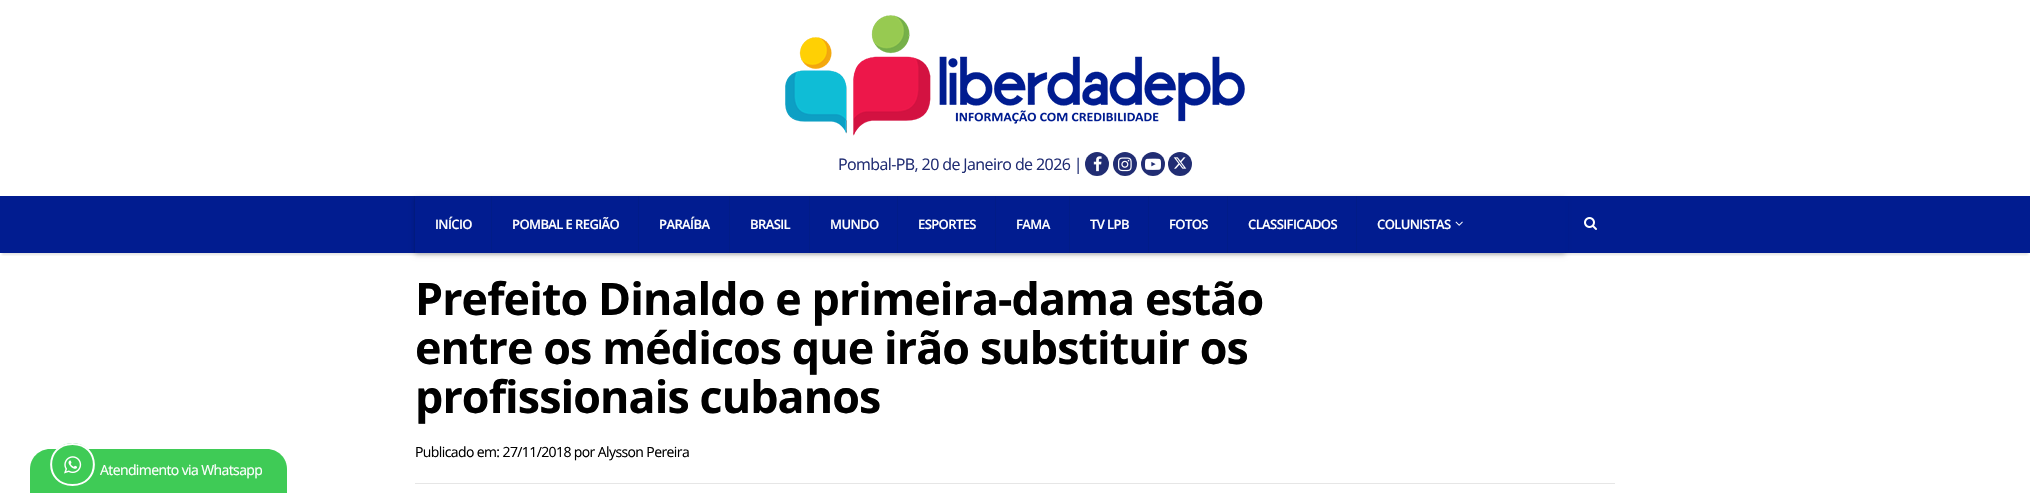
static SkFont makeFont(const char* family, int weight, float size, bool italic = false) {
  SkFontStyle style(weight, SkFontStyle::kNormal_Width,
    italic ? SkFontStyle::kItalic_Slant : SkFontStyle::kUpright_Slant);
  SkFont result(fontMgr->matchFamilyStyle(family, style), size);
  result.setSubpixel(true);
  return result;
}

static void spacedText(SkCanvas* c, const char* s, float x, float y, const SkFont& font, const SkPaint& ink, float letter, float word) {
  std::vector<SkGlyphID> glyphs(font.countText(s, strlen(s), SkTextEncoding::kUTF8));
  std::vector<float> xs(glyphs.size());
  font.textToGlyphs(s, strlen(s), SkTextEncoding::kUTF8, glyphs);
  font.getXPos(glyphs, xs, x);
  float extra = 0;
  for (size_t i = 0; i < glyphs.size(); i++) {
    xs[i] += extra;
    extra += letter + word * (glyphs[i] == font.unicharToGlyph(' '));
  }
  c->drawTextBlob(SkTextBlob::MakeFromPosHGlyphs(glyphs, xs, y, font), 0, 0, ink);
}

static void box(SkCanvas* c, float l, float t, float r, float b, SkColor color) {
  SkPaint ink(SkColor4f::FromColor(color));
  ink.setAntiAlias(true);
  c->drawRect(SkRect::MakeLTRB(l, t, r, b), ink);
}

static void picture(SkCanvas* c, const char* path, float l, float t, float r, float b) {
  auto image = SkImages::DeferredFromEncodedData(SkData::MakeFromFileName(path));
  c->drawImageRect(image, SkRect::MakeLTRB(l, t, r, b), SkSamplingOptions());
}

void draw(SkCanvas* c) {
  SkPaint paint;
  paint.setAntiAlias(true);
  c->clear(0xffffffff);
  c->save();
  c->clipRect(SkRect::MakeLTRB(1, 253, 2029, 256));
  paint.setColor(0x1a000000);
  paint.setMaskFilter(SkMaskFilter::MakeBlur(kNormal_SkBlurStyle, 1));
  c->drawRect(SkRect::MakeLTRB(2, 6, 2028, 255), paint);
  paint.setMaskFilter(nullptr);
  c->restore();
  picture(c, "img_01.png", 785, 15, 1245, 136);
  SkFont face1 = makeFont("Open Sans", 400, 16);
  paint.setColor(0xff212d73);
  spacedText(c, "Pombal-PB, 20 de Janeiro de 2026 |", 838, 170, face1, paint, -0.6f, 0);
  c->drawCircle(1097, 164, 12, paint);
  picture(c, "img_02.png", 1093, 156, 1102, 172);
  c->drawCircle(1125, 164, 12, paint);
  picture(c, "img_03.png", 1118, 157, 1132, 172);
  c->drawCircle(1153, 164, 12, paint);
  picture(c, "img_04.png", 1145, 158, 1161, 170);
  c->drawCircle(1180, 164, 12, paint);
  picture(c, "img_05.png", 1173, 157, 1187, 169);
  box(c, 0, 196, 2030, 253, 0xff011c90);
  c->save();
  c->clipPath(SkPathBuilder(SkPathFillType::kEvenOdd).moveTo(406, 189).lineTo(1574, 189).lineTo(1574, 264).lineTo(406, 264).close().moveTo(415, 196).lineTo(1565, 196).lineTo(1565, 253).lineTo(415, 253).close().detach(), true);
  paint.setColor(0x33000000);
  paint.setMaskFilter(SkMaskFilter::MakeBlur(kNormal_SkBlurStyle, 2.5f));
  c->drawRect(SkRect::MakeLTRB(415, 198, 1565, 255), paint);
  paint.setMaskFilter(nullptr);
  c->restore();
  box(c, 414, 196, 415, 253, 0x1a042043);
  SkFont face2 = makeFont("Open Sans", 600, 13);
  paint.setColor(0xffffffff);
  spacedText(c, "INÍCIO", 435, 229, face2, paint, -0.6f, 0);
  box(c, 491, 196, 492, 253, 0xff011c88);
  spacedText(c, "POMBAL E REGIÃO", 512, 229, face2, paint, -0.6f, 0);
  box(c, 638, 196, 639, 253, 0xff011c88);
  spacedText(c, "PARAÍBA", 659, 229, face2, paint, -0.6f, 0);
  box(c, 729, 196, 730, 253, 0xff011c88);
  spacedText(c, "BRASIL", 750, 229, face2, paint, -0.6f, 0);
  box(c, 809, 196, 810, 253, 0xff011c88);
  spacedText(c, "MUNDO", 830, 229, face2, paint, -0.6f, 0);
  box(c, 897, 196, 898, 253, 0xff011c88);
  spacedText(c, "ESPORTES", 918, 229, face2, paint, -0.6f, 0);
  box(c, 995, 196, 996, 253, 0xff011c88);
  spacedText(c, "FAMA", 1016, 229, face2, paint, -0.6f, 0);
  box(c, 1069, 196, 1070, 253, 0xff011c88);
  spacedText(c, "TV LPB", 1090, 229, face2, paint, -0.6f, 0);
  box(c, 1148, 196, 1149, 253, 0xff011c88);
  spacedText(c, "FOTOS", 1169, 229, face2, paint, -0.6f, 0);
  box(c, 1227, 196, 1228, 253, 0xff011c88);
  spacedText(c, "CLASSIFICADOS", 1248, 229, face2, paint, -0.6f, 0);
  box(c, 1356, 196, 1357, 253, 0xff011c88);
  spacedText(c, "COLUNISTAS", 1377, 229, face2, paint, -0.6f, 0);
  picture(c, "img_06.png", 1455, 221, 1463, 226);
  box(c, 1565, 196, 1568, 252, 0xff001c90);
  picture(c, "img_07.png", 1584, 217, 1597, 230);
  SkFont face3 = makeFont("Open Sans", 700, 44.75f);
  paint.setColor(0xff000000);
  spacedText(c, "Prefeito Dinaldo e primeira-dama estão", 415, 315, face3, paint, -0.9f, 0);
  spacedText(c, "entre os médicos que irão substituir os", 415, 364, face3, paint, -0.9f, 0);
  spacedText(c, "profissionais cubanos", 415, 413, face3, paint, -0.9f, 0);
  box(c, 415, 483, 1615, 484, 0xffe6e6e6);
  SkFont face4 = makeFont("Open Sans", 400, 14);
  spacedText(c, "Publicado em: 27/11/2018 por Alysson Pereira", 415, 457, face4, paint, -0.6f, 0);
  paint.setColor(0xff3fcb56);
  c->drawPath(SkPathBuilder().moveTo(50, 449).lineTo(267, 449).cubicTo(278, 449, 287, 458, 287, 469).lineTo(287, 493).lineTo(30, 493).lineTo(30, 469).cubicTo(30, 458, 39, 449, 50, 449).close().detach(), paint);
  c->drawOval(SkRect::MakeLTRB(50, 443, 95, 486), paint);
  paint.setStyle(SkPaint::kStroke_Style);
  paint.setStrokeWidth(2);
  paint.setColor(0xffffffff);
  c->drawPath(SkPathBuilder().moveTo(72.5f, 444).cubicTo(101, 444, 101, 485, 72.5f, 485).cubicTo(44, 485, 44, 444, 72.5f, 444).close().detach(), paint);
  picture(c, "img_08.png", 64, 456, 82, 474);
  paint.setStyle(SkPaint::kFill_Style);
  spacedText(c, "Atendimento via Whatsapp", 100, 475, face4, paint, -0.6f, 0);
}
